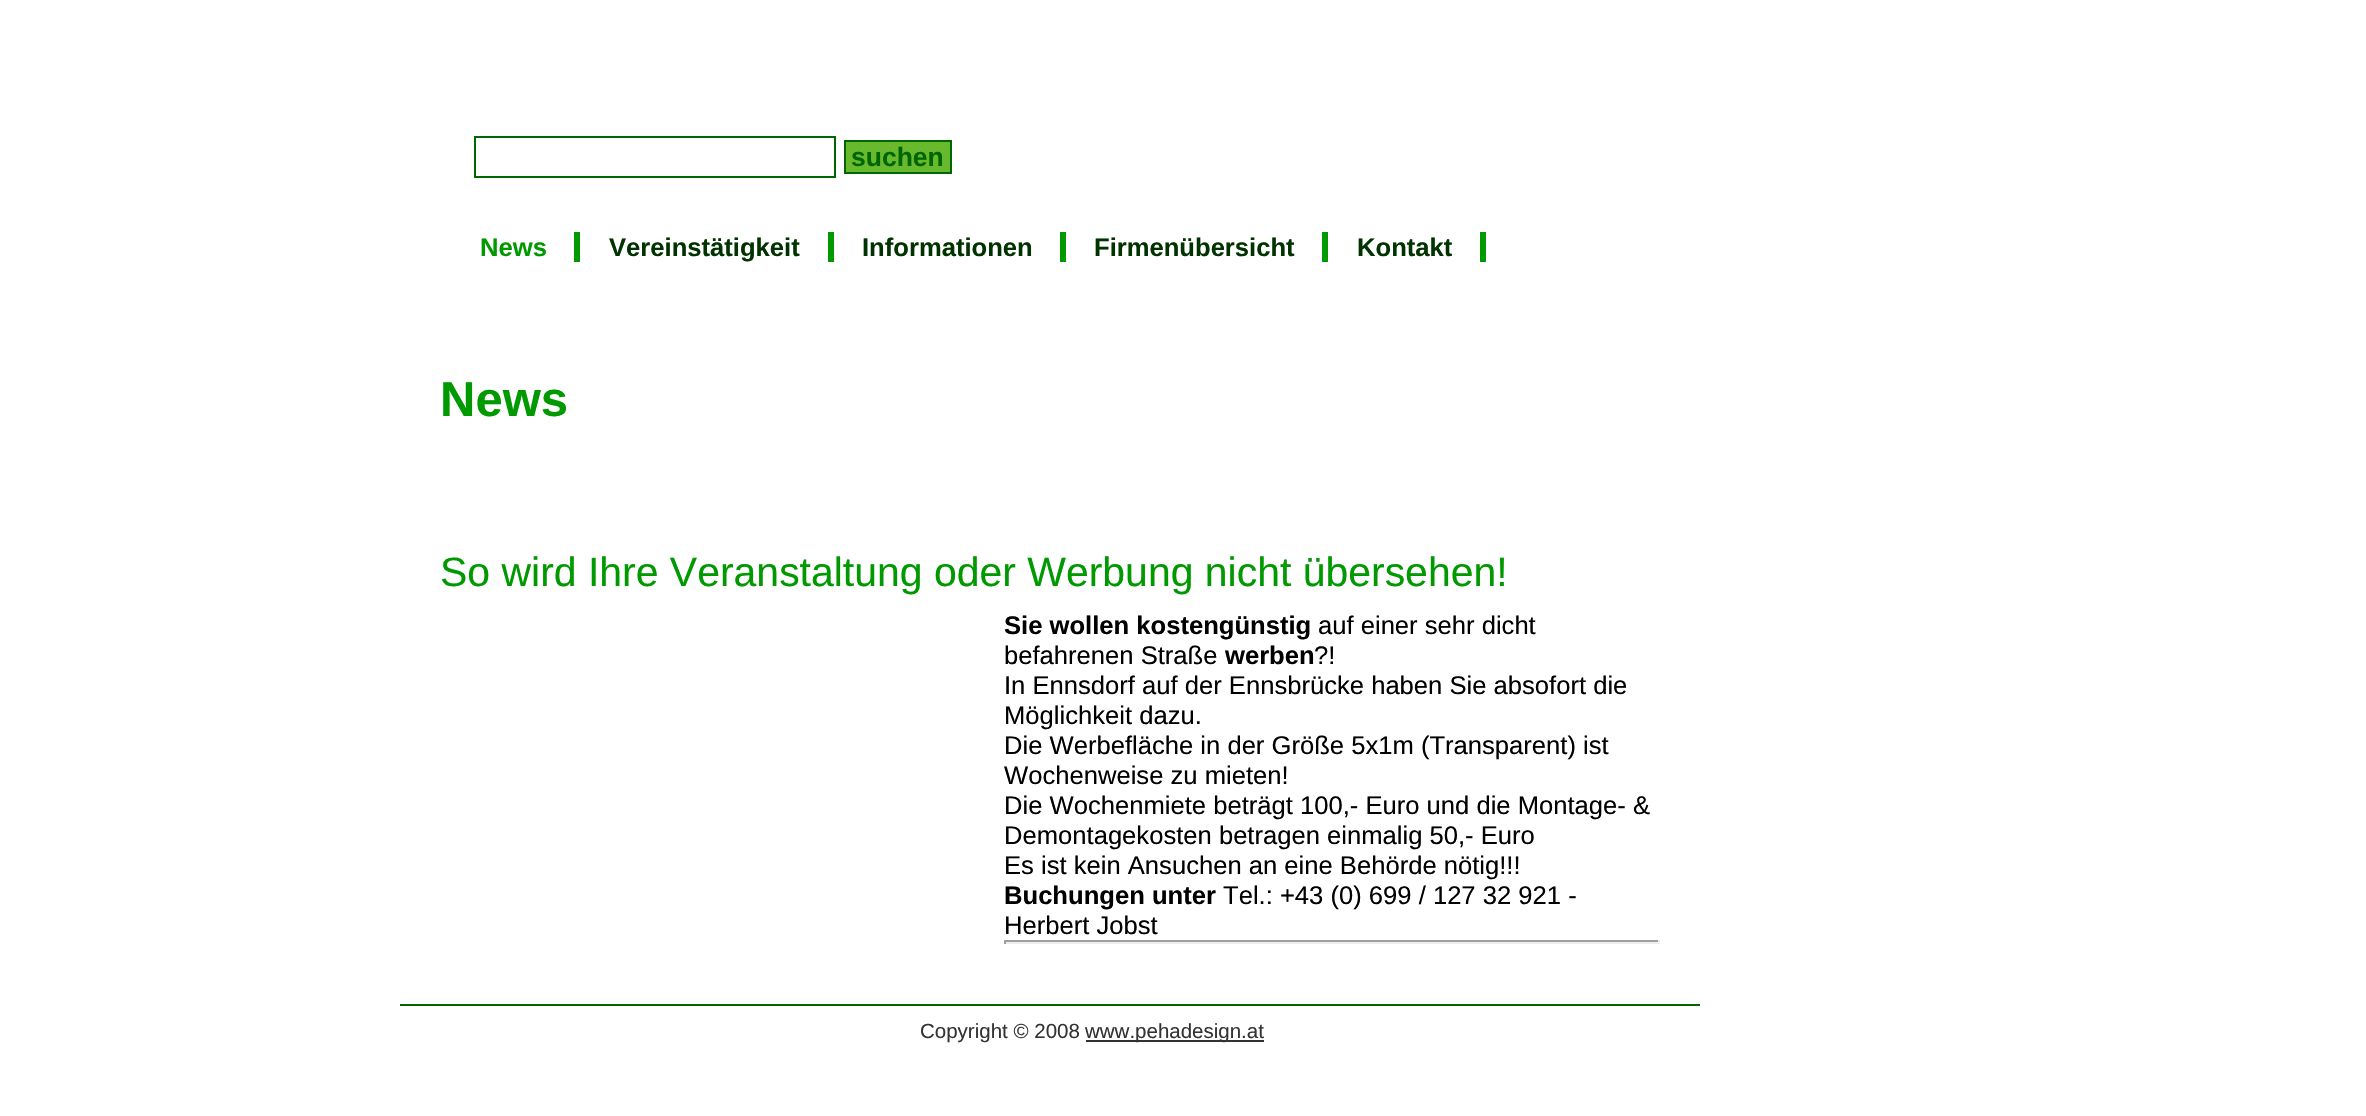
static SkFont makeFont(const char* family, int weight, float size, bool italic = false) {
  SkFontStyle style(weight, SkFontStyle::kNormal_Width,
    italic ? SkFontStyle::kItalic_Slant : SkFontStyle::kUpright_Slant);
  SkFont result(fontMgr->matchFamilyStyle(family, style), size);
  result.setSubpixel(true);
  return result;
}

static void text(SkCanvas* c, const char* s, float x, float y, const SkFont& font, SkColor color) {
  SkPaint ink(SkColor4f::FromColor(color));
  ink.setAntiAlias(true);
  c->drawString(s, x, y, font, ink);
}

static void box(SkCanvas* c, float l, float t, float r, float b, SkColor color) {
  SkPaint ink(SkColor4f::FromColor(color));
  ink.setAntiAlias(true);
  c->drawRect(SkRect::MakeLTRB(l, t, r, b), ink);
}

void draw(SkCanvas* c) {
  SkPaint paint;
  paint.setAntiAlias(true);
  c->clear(0xffffffff);
  paint.setStyle(SkPaint::kStroke_Style);
  paint.setStrokeWidth(2);
  paint.setColor(0xff006600);
  c->drawRect(SkRect::MakeLTRB(475, 137, 835, 177), paint);
  paint.setStyle(SkPaint::kFill_Style);
  paint.setColor(0xff68b92e);
  c->drawRect(SkRect::MakeLTRB(845, 141, 951, 173), paint);
  paint.setStyle(SkPaint::kStroke_Style);
  paint.setColor(0xff006600);
  c->drawRect(SkRect::MakeLTRB(845, 141, 951, 173), paint);
  SkFont face1 = makeFont("Liberation Sans", 700, 26.5f);
  text(c, "suchen", 851, 166, face1, 0xff006600);
  box(c, 574, 232, 580, 262, 0xff009900);
  SkFont face2 = makeFont("Liberation Sans", 700, 25.6f);
  text(c, "News", 480, 256, face2, 0xff009900);
  box(c, 828, 232, 834, 262, 0xff009900);
  text(c, "Vereinstätigkeit", 609, 256, face2, 0xff003300);
  box(c, 1060, 232, 1066, 262, 0xff009900);
  text(c, "Informationen", 862, 256, face2, 0xff003300);
  box(c, 1322, 232, 1328, 262, 0xff009900);
  text(c, "Firmenübersicht", 1094, 256, face2, 0xff003300);
  box(c, 1480, 232, 1486, 262, 0xff009900);
  text(c, "Kontakt", 1357, 256, face2, 0xff003300);
  box(c, 400, 1004, 1700, 1006, 0xff006600);
  SkFont face3 = makeFont("Liberation Sans", 700, 49);
  text(c, "News", 440, 416, face3, 0xff009900);
  SkFont face4 = makeFont("Liberation Sans", 400, 40.95f);
  text(c, "So wird Ihre Veranstaltung oder Werbung nicht übersehen!", 440, 586, face4, 0xff009900);
  text(c, "Sie wollen kostengünstig", 1004, 634, face2, 0xff000000);
  SkFont face5 = makeFont("Liberation Sans", 400, 25.6f);
  text(c, "auf einer sehr dicht", 1318, 634, face5, 0xff000000);
  text(c, "befahrenen Straße", 1004, 664, face5, 0xff000000);
  text(c, "werben", 1225, 664, face2, 0xff000000);
  text(c, "?!", 1314, 664, face5, 0xff000000);
  text(c, "In Ennsdorf auf der Ennsbrücke haben Sie absofort die", 1004, 694, face5, 0xff000000);
  text(c, "Möglichkeit dazu.", 1004, 724, face5, 0xff000000);
  text(c, "Die Werbefläche in der Größe 5x1m (Transparent) ist", 1004, 754, face5, 0xff000000);
  text(c, "Wochenweise zu mieten!", 1004, 784, face5, 0xff000000);
  text(c, "Die Wochenmiete beträgt 100,- Euro und die Montage- &", 1004, 814, face5, 0xff000000);
  text(c, "Demontagekosten betragen einmalig 50,- Euro", 1004, 844, face5, 0xff000000);
  text(c, "Es ist kein Ansuchen an eine Behörde nötig!!!", 1004, 874, face5, 0xff000000);
  text(c, "Buchungen unter", 1004, 904, face2, 0xff000000);
  text(c, "Tel.: +43 (0) 699 / 127 32 921 -", 1223, 904, face5, 0xff000000);
  text(c, "Herbert Jobst", 1004, 934, face5, 0xff000000);
  box(c, 1004, 940, 1660, 942, 0xff9f9f9f);
  box(c, 1658, 940, 1660, 944, 0xffeeeeee);
  box(c, 1004, 942, 1660, 944, 0xffeeeeee);
  box(c, 1004, 940, 1006, 944, 0xff9f9f9f);
  SkFont face6 = makeFont("Liberation Sans", 400, 20.5f);
  text(c, "Copyright © 2008", 920, 1038, face6, 0xff333333);
  box(c, 1086, 1040, 1264, 1042, 0xff333333);
  text(c, "www.pehadesign.at", 1085, 1038, face6, 0xff333333);
}
